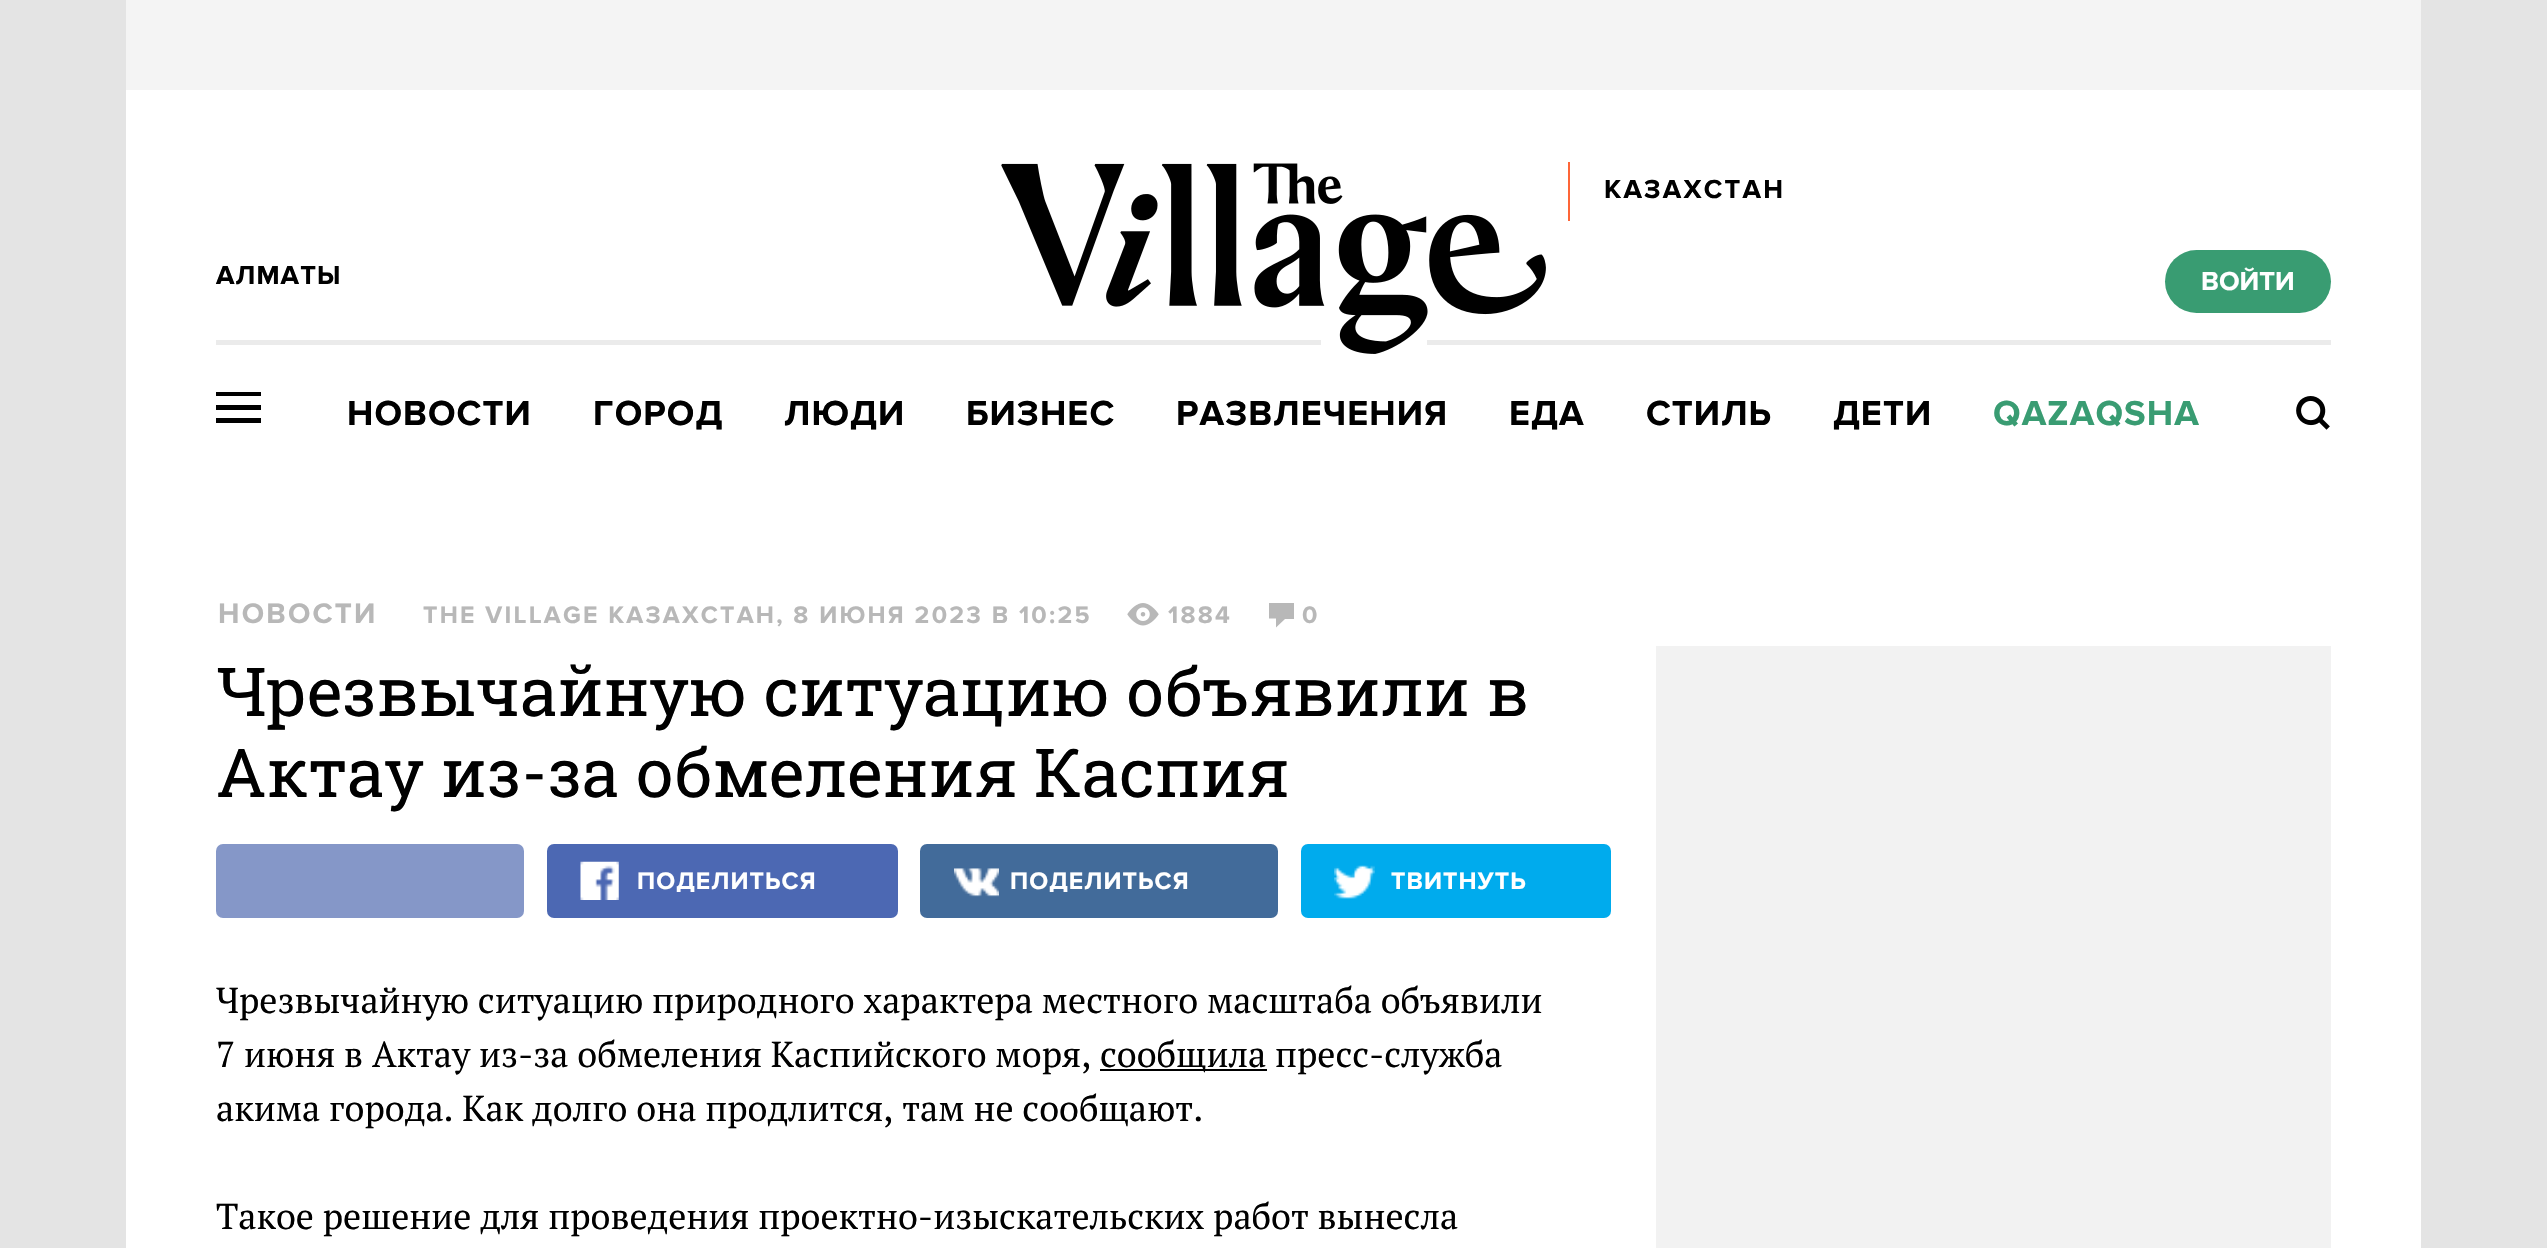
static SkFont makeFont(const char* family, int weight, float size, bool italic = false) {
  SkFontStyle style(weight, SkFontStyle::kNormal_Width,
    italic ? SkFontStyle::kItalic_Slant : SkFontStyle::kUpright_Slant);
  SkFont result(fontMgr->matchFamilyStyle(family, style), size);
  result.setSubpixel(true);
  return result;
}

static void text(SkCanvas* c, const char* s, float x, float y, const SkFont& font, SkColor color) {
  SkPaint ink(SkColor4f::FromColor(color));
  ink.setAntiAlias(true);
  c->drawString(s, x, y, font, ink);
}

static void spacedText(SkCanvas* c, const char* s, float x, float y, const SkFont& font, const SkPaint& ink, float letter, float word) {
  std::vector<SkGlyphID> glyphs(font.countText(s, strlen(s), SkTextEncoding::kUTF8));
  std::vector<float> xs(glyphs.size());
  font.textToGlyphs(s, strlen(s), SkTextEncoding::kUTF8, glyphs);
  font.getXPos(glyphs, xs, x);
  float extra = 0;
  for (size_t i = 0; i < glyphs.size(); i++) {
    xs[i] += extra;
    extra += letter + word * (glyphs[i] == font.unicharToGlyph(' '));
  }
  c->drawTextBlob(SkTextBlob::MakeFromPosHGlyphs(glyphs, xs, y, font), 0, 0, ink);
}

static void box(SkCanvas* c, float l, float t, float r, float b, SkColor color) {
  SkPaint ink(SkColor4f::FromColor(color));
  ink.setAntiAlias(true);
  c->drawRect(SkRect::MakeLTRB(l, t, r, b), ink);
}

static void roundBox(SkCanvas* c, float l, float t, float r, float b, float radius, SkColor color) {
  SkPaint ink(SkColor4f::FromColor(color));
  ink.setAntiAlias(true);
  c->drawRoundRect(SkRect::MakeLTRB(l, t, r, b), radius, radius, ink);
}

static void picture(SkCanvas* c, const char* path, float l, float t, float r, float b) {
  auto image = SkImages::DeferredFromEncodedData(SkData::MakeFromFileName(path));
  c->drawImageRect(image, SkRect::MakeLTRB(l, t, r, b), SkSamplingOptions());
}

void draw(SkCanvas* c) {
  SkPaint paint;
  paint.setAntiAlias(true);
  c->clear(0xffe4e4e4);
  box(c, 126, 0, 2421, 90, 0xfff4f4f4);
  box(c, 126, 90, 2421, 1248, 0xffffffff);
  box(c, 216, 340, 2331, 345, 0xffebebeb);
  box(c, 1321, 340, 1427, 345, 0xffffffff);
  picture(c, "img_01.png", 1001, 163, 1546, 354);
  box(c, 1568, 162, 1570, 221, 0xfffe6638);
  SkFont face1 = makeFont("Proxima Nova", 700, 27);
  paint.setColor(0xff000000);
  spacedText(c, "КАЗАХСТАН", 1604, 198, face1, paint, 2.25f, 0);
  spacedText(c, "АЛМАТЫ", 216, 284, face1, paint, 1.1f, 0);
  roundBox(c, 2165, 250, 2331, 313, 31.5f, 0xff399c72);
  text(c, "ВОЙТИ", 2201, 290, face1, 0xffffffff);
  box(c, 216, 392, 261, 396, 0xff000000);
  box(c, 216, 405, 261, 410, 0xff000000);
  box(c, 216, 418, 261, 423, 0xff000000);
  SkFont face2 = makeFont("Proxima Nova", 700, 36);
  spacedText(c, "НОВОСТИ", 347, 425, face2, paint, 1.1f, 0);
  spacedText(c, "ГОРОД", 593, 425, face2, paint, 1.1f, 0);
  spacedText(c, "ЛЮДИ", 784, 425, face2, paint, 1.1f, 0);
  spacedText(c, "БИЗНЕС", 966, 425, face2, paint, 1.1f, 0);
  spacedText(c, "РАЗВЛЕЧЕНИЯ", 1176, 425, face2, paint, 1.1f, 0);
  spacedText(c, "ЕДА", 1509, 425, face2, paint, 1.1f, 0);
  spacedText(c, "СТИЛЬ", 1646, 425, face2, paint, 1.1f, 0);
  spacedText(c, "ДЕТИ", 1833, 425, face2, paint, 1.1f, 0);
  paint.setColor(0xff399c72);
  spacedText(c, "QAZAQSHA", 1993, 425, face2, paint, 1.1f, 0);
  picture(c, "img_02.png", 2296, 396, 2330, 430);
  SkFont face3 = makeFont("Proxima Nova", 700, 29.25f);
  paint.setColor(0xffb8b8b8);
  spacedText(c, "НОВОСТИ", 218, 623, face3, paint, 2.25f, 0);
  SkFont face4 = makeFont("Proxima Nova", 700, 24.75f);
  spacedText(c, "THE VILLAGE КАЗАХСТАН, 8 ИЮНЯ 2023 В 10:25", 423, 623, face4, paint, 2.25f, 0);
  picture(c, "img_03.png", 1127, 603, 1159, 626);
  spacedText(c, "1884", 1168, 623, face4, paint, 2.25f, 0);
  spacedText(c, "0", 1302, 623, face4, paint, 2.25f, 0);
  c->drawPath(SkPathBuilder().moveTo(1276, 627.5f).lineTo(1276, 618.5f).lineTo(1269, 618.5f).lineTo(1269, 603).lineTo(1294, 603).lineTo(1294, 619).lineTo(1285, 619).close().detach(), paint);
  SkFont face5 = makeFont("Roboto Slab", 400, 67.5f);
  text(c, "Чрезвычайную ситуацию объявили в", 216, 716, face5, 0xff000000);
  text(c, "Актау из-за обмеления Каспия", 216, 797, face5, 0xff000000);
  roundBox(c, 216, 844, 524, 918, 7, 0xff8597c8);
  roundBox(c, 547, 844, 898, 918, 7, 0xff4c68b3);
  picture(c, "img_04.png", 580, 861, 619, 900);
  paint.setColor(0xffffffff);
  spacedText(c, "ПОДЕЛИТЬСЯ", 637, 889, face4, paint, 1.1f, 0);
  roundBox(c, 920, 844, 1278, 918, 7, 0xff426b9a);
  picture(c, "img_05.png", 954, 868, 999, 897);
  spacedText(c, "ПОДЕЛИТЬСЯ", 1010, 889, face4, paint, 1.1f, 0);
  roundBox(c, 1301, 844, 1611, 918, 7, 0xff00abed);
  picture(c, "img_06.png", 1334, 865, 1375, 899);
  spacedText(c, "ТВИТНУТЬ", 1391, 889, face4, paint, 1.1f, 0);
  box(c, 1656, 646, 2331, 1248, 0xfff2f2f2);
  SkFont face6 = makeFont("PT Serif", 400, 36);
  text(c, "Чрезвычайную ситуацию природного характера местного масштаба объявили", 216, 1013, face6, 0xff000000);
  text(c, "7 июня в Актау из-за обмеления Каспийского моря,", 216, 1067, face6, 0xff000000);
  box(c, 1100, 1069, 1267, 1071, 0xff000000);
  text(c, "сообщила пресс-служба", 1100, 1067, face6, 0xff000000);
  text(c, "акима города. Как долго она продлится, там не сообщают.", 216, 1121, face6, 0xff000000);
  text(c, "Такое решение для проведения проектно-изыскательских работ вынесла", 216, 1229, face6, 0xff000000);
}
